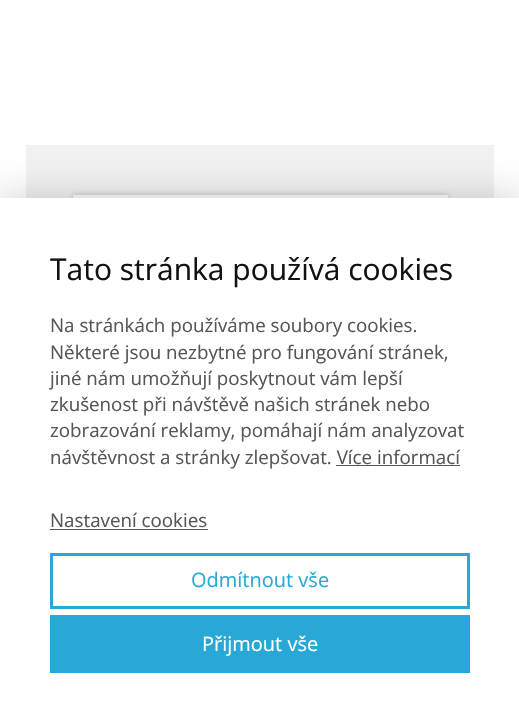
static SkFont makeFont(const char* family, int weight, float size, bool italic = false) {
  SkFontStyle style(weight, SkFontStyle::kNormal_Width,
    italic ? SkFontStyle::kItalic_Slant : SkFontStyle::kUpright_Slant);
  SkFont result(fontMgr->matchFamilyStyle(family, style), size);
  result.setSubpixel(true);
  return result;
}

static void text(SkCanvas* c, const char* s, float x, float y, const SkFont& font, SkColor color) {
  SkPaint ink(SkColor4f::FromColor(color));
  ink.setAntiAlias(true);
  c->drawString(s, x, y, font, ink);
}

static void box(SkCanvas* c, float l, float t, float r, float b, SkColor color) {
  SkPaint ink(SkColor4f::FromColor(color));
  ink.setAntiAlias(true);
  c->drawRect(SkRect::MakeLTRB(l, t, r, b), ink);
}

void draw(SkCanvas* c) {
  SkPaint paint;
  paint.setAntiAlias(true);
  c->clear(0xffffffff);
  box(c, 26, 145, 494, 198, 0xfff2f2f2);
  paint.setColor(0x33000000);
  paint.setMaskFilter(SkMaskFilter::MakeBlur(kNormal_SkBlurStyle, 2.5f));
  c->drawRect(SkRect::MakeLTRB(73, 195, 448, 249), paint);
  paint.setMaskFilter(nullptr);
  box(c, 73, 195, 448, 198, 0xffffffff);
  paint.setMaskFilter(SkMaskFilter::MakeBlur(kNormal_SkBlurStyle, 19));
  c->drawRect(SkRect::MakeLTRB(0, 198, 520, 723), paint);
  paint.setMaskFilter(nullptr);
  box(c, 0, 198, 519, 722, 0xffffffff);
  SkFont face1 = makeFont("Open Sans", 400, 30);
  text(c, "Tato stránka používá cookies", 50, 280, face1, 0xff111111);
  SkFont face2 = makeFont("Open Sans", 400, 18.75f);
  text(c, "Na stránkách používáme soubory cookies.", 50, 332, face2, 0xff555555);
  text(c, "Některé jsou nezbytné pro fungování stránek,", 50, 359, face2, 0xff555555);
  text(c, "jiné nám umožňují poskytnout vám lepší", 50, 385, face2, 0xff555555);
  text(c, "zkušenost při návštěvě našich stránek nebo", 50, 411, face2, 0xff555555);
  text(c, "zobrazování reklamy, pomáhají nám analyzovat", 50, 437, face2, 0xff555555);
  text(c, "návštěvnost a stránky zlepšovat. Více informací", 50, 464, face2, 0xff555555);
  box(c, 336, 465, 460, 466, 0xff555555);
  text(c, "Nastavení cookies", 50, 527, face2, 0xff555555);
  box(c, 50, 529, 208, 530, 0xff555555);
  paint.setStyle(SkPaint::kStroke_Style);
  paint.setStrokeWidth(3);
  paint.setColor(0xff27a8d7);
  c->drawRect(SkRect::MakeLTRB(51.5f, 554.5f, 468.5f, 607.5f), paint);
  SkFont face3 = makeFont("Open Sans", 400, 20);
  text(c, "Odmítnout vše", 191, 587, face3, 0xff27a8d7);
  box(c, 50, 615, 470, 673, 0xff27a8d7);
  text(c, "Přijmout vše", 202, 651, face3, 0xffffffff);
}
